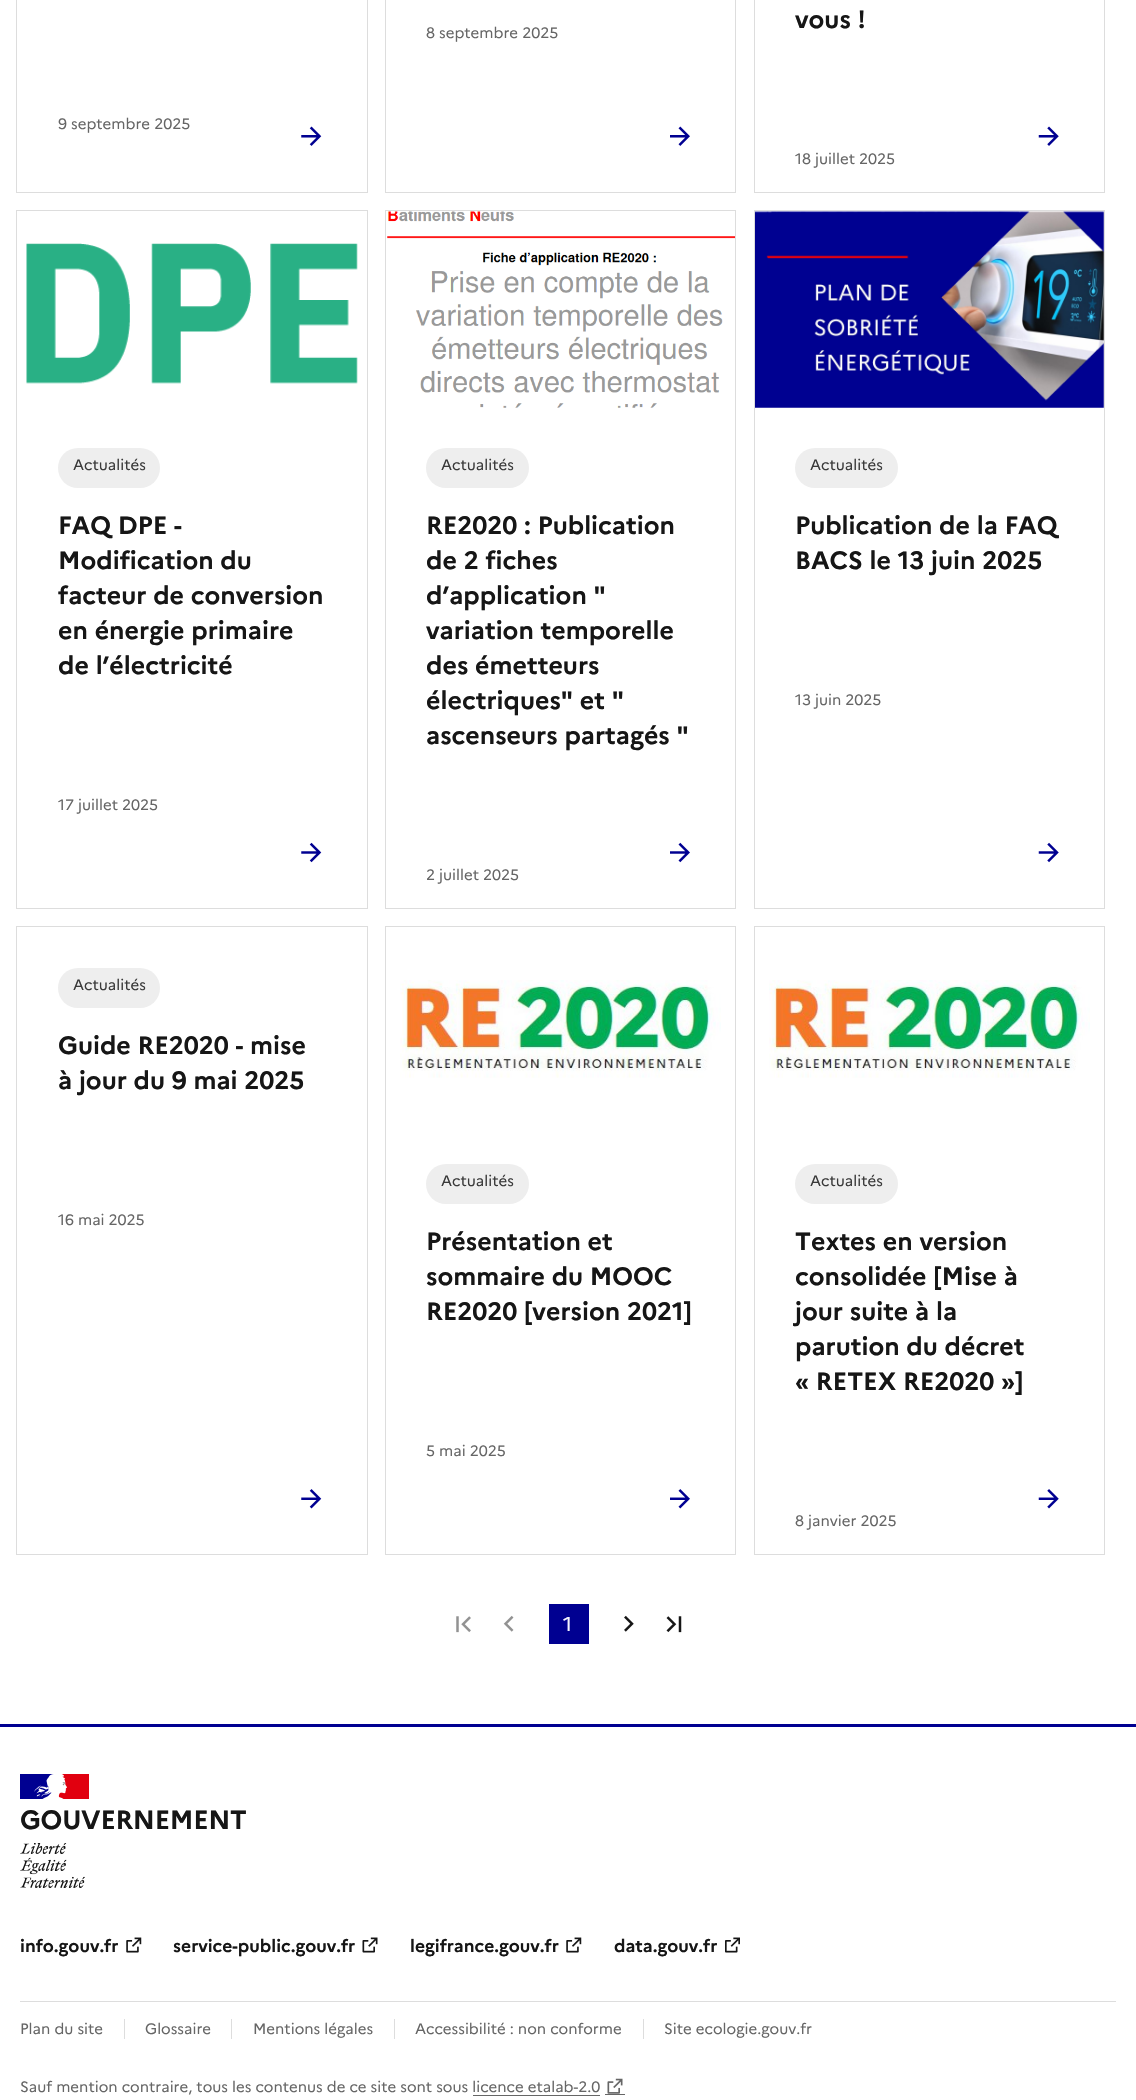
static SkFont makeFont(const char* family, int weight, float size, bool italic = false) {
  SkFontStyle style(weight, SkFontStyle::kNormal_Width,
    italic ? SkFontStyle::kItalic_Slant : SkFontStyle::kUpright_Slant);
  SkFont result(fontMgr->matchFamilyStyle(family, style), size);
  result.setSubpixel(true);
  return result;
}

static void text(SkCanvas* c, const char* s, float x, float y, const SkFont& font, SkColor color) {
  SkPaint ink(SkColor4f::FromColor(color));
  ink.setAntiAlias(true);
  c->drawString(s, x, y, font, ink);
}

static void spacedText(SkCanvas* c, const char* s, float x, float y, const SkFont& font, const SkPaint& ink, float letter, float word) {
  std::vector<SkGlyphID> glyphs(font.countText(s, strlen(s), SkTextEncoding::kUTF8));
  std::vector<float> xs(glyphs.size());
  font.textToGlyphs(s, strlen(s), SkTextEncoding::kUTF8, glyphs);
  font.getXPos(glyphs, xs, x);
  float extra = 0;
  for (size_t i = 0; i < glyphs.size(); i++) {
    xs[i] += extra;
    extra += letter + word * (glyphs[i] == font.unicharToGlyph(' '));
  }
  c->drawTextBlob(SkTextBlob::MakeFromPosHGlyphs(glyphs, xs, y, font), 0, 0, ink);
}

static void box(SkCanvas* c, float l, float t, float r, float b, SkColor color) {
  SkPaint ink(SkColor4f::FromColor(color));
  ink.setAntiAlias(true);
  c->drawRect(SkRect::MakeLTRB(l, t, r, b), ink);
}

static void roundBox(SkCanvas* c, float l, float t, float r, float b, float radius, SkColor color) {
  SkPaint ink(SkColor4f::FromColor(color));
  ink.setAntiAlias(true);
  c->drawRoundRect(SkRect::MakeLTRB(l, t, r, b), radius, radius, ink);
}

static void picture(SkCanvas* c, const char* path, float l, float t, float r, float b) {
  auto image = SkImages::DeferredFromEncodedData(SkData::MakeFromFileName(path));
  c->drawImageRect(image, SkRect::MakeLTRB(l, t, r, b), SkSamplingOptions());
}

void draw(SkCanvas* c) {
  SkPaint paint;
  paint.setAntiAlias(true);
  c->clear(0xffffffff);
  paint.setStyle(SkPaint::kStroke_Style);
  paint.setStrokeWidth(1);
  paint.setColor(0xffdddddd);
  c->drawRect(SkRect::MakeLTRB(385.5f, -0.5f, 735.5f, 192.5f), paint);
  SkFont face1 = makeFont("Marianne", 400, 15);
  text(c, "8 septembre 2025", 426, 38, face1, 0xff666666);
  picture(c, "img_01.png", 670, 126, 690, 146);
  c->drawRect(SkRect::MakeLTRB(754.5f, -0.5f, 1104.5f, 192.5f), paint);
  SkFont face2 = makeFont("Marianne", 700, 25);
  text(c, "vous !", 795, 28, face2, 0xff161616);
  text(c, "18 juillet 2025", 795, 164, face1, 0xff666666);
  picture(c, "img_02.png", 1038, 126, 1059, 146);
  c->drawRect(SkRect::MakeLTRB(16.5f, -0.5f, 367.5f, 192.5f), paint);
  text(c, "9 septembre 2025", 58, 129, face1, 0xff666666);
  picture(c, "img_03.png", 301, 126, 322, 146);
  c->drawRect(SkRect::MakeLTRB(16.5f, 210.5f, 367.5f, 908.5f), paint);
  picture(c, "img_04.png", 26, 243, 358, 384);
  roundBox(c, 58, 448, 160, 488, 20, 0xffeeeeee);
  text(c, "Actualités", 73, 470, face1, 0xff3a3a3a);
  text(c, "FAQ DPE -", 58, 534, face2, 0xff161616);
  text(c, "Modification du", 58, 569, face2, 0xff161616);
  text(c, "facteur de conversion", 58, 604, face2, 0xff161616);
  text(c, "en énergie primaire", 58, 639, face2, 0xff161616);
  text(c, "de l’électricité", 58, 674, face2, 0xff161616);
  text(c, "17 juillet 2025", 58, 810, face1, 0xff666666);
  picture(c, "img_05.png", 301, 842, 322, 863);
  c->drawRect(SkRect::MakeLTRB(385.5f, 210.5f, 735.5f, 908.5f), paint);
  picture(c, "img_06.png", 387, 211, 735, 408);
  roundBox(c, 426, 448, 529, 488, 20, 0xffeeeeee);
  text(c, "Actualités", 441, 470, face1, 0xff3a3a3a);
  text(c, "RE2020 : Publication", 426, 534, face2, 0xff161616);
  text(c, "de 2 fiches", 426, 569, face2, 0xff161616);
  text(c, "d’application \"", 426, 604, face2, 0xff161616);
  text(c, "variation temporelle", 426, 639, face2, 0xff161616);
  text(c, "des émetteurs", 426, 674, face2, 0xff161616);
  text(c, "électriques\" et \"", 426, 709, face2, 0xff161616);
  text(c, "ascenseurs partagés \"", 426, 744, face2, 0xff161616);
  text(c, "2 juillet 2025", 426, 880, face1, 0xff666666);
  picture(c, "img_07.png", 670, 842, 690, 863);
  c->drawRect(SkRect::MakeLTRB(754.5f, 210.5f, 1104.5f, 908.5f), paint);
  picture(c, "img_08.png", 755, 211, 1104, 408);
  roundBox(c, 795, 448, 898, 488, 20, 0xffeeeeee);
  text(c, "Actualités", 810, 470, face1, 0xff3a3a3a);
  text(c, "Publication de la FAQ", 795, 534, face2, 0xff161616);
  text(c, "BACS le 13 juin 2025", 795, 569, face2, 0xff161616);
  text(c, "13 juin 2025", 795, 705, face1, 0xff666666);
  picture(c, "img_09.png", 1038, 842, 1059, 863);
  c->drawRect(SkRect::MakeLTRB(16.5f, 926.5f, 367.5f, 1554.5f), paint);
  roundBox(c, 58, 968, 160, 1008, 20, 0xffeeeeee);
  text(c, "Actualités", 73, 990, face1, 0xff3a3a3a);
  text(c, "Guide RE2020 - mise", 58, 1054, face2, 0xff161616);
  text(c, "à jour du 9 mai 2025", 58, 1089, face2, 0xff161616);
  text(c, "16 mai 2025", 58, 1225, face1, 0xff666666);
  picture(c, "img_10.png", 301, 1489, 322, 1509);
  c->drawRect(SkRect::MakeLTRB(385.5f, 926.5f, 735.5f, 1554.5f), paint);
  picture(c, "img_11.png", 400, 980, 721, 1078);
  roundBox(c, 426, 1164, 529, 1204, 20, 0xffeeeeee);
  text(c, "Actualités", 441, 1186, face1, 0xff3a3a3a);
  text(c, "Présentation et", 426, 1250, face2, 0xff161616);
  text(c, "sommaire du MOOC", 426, 1285, face2, 0xff161616);
  text(c, "RE2020 [version 2021]", 426, 1320, face2, 0xff161616);
  text(c, "5 mai 2025", 426, 1456, face1, 0xff666666);
  picture(c, "img_12.png", 670, 1489, 690, 1509);
  c->drawRect(SkRect::MakeLTRB(754.5f, 926.5f, 1104.5f, 1554.5f), paint);
  picture(c, "img_13.png", 769, 980, 1090, 1078);
  roundBox(c, 795, 1164, 898, 1204, 20, 0xffeeeeee);
  text(c, "Actualités", 810, 1186, face1, 0xff3a3a3a);
  text(c, "Textes en version", 795, 1250, face2, 0xff161616);
  text(c, "consolidée [Mise à", 795, 1285, face2, 0xff161616);
  text(c, "jour suite à la", 795, 1320, face2, 0xff161616);
  text(c, "parution du décret", 795, 1355, face2, 0xff161616);
  text(c, "« RETEX RE2020 »]", 795, 1390, face2, 0xff161616);
  text(c, "8 janvier 2025", 795, 1526, face1, 0xff666666);
  picture(c, "img_14.png", 1038, 1489, 1059, 1509);
  picture(c, "img_15.png", 456, 1616, 471, 1633);
  picture(c, "img_16.png", 503, 1615, 514, 1632);
  box(c, 549, 1604, 589, 1644, 0xff000091);
  SkFont face3 = makeFont("Marianne", 400, 20);
  text(c, "1", 563, 1631, face3, 0xfff5f5fe);
  picture(c, "img_17.png", 624, 1615, 634, 1632);
  picture(c, "img_18.png", 666, 1616, 682, 1633);
  box(c, 0, 1724, 1136, 1727, 0xff000091);
  box(c, 20, 1774, 54, 1799, 0xff000091);
  box(c, 58, 1774, 89, 1799, 0xffe1000f);
  picture(c, "img_19.png", 34, 1774, 67, 1799);
  SkFont face4 = makeFont("Marianne", 700, 26.25f);
  paint.setStyle(SkPaint::kFill_Style);
  paint.setColor(0xff161616);
  spacedText(c, "GOUVERNEMENT", 20, 1829, face4, paint, -0.25f, 0);
  picture(c, "img_20.png", 20, 1843, 85, 1888);
  SkFont face5 = makeFont("Marianne", 700, 17.5f);
  text(c, "info.gouv.fr", 20, 1952, face5, 0xff161616);
  picture(c, "img_21.png", 126, 1937, 142, 1953);
  text(c, "service-public.gouv.fr", 173, 1952, face5, 0xff161616);
  picture(c, "img_22.png", 362, 1937, 378, 1953);
  text(c, "legifrance.gouv.fr", 410, 1952, face5, 0xff161616);
  picture(c, "img_21.png", 566, 1937, 582, 1953);
  text(c, "data.gouv.fr", 614, 1952, face5, 0xff161616);
  picture(c, "img_23.png", 725, 1937, 740, 1953);
  box(c, 20, 2001, 1116, 2002, 0xffdddddd);
  text(c, "Plan du site", 20, 2034, face1, 0xff666666);
  box(c, 124, 2019, 125, 2039, 0xffdddddd);
  text(c, "Glossaire", 145, 2034, face1, 0xff666666);
  box(c, 231, 2019, 232, 2039, 0xffdddddd);
  text(c, "Mentions légales", 253, 2034, face1, 0xff666666);
  box(c, 394, 2019, 395, 2039, 0xffdddddd);
  text(c, "Accessibilité : non conforme", 415, 2034, face1, 0xff666666);
  box(c, 643, 2019, 644, 2039, 0xffdddddd);
  text(c, "Site ecologie.gouv.fr", 664, 2034, face1, 0xff666666);
  box(c, 473, 2095, 600, 2096, 0xff666666);
  box(c, 605, 2094, 625, 2095, 0xff666666);
  picture(c, "img_24.png", 607, 2078, 623, 2094);
  text(c, "Sauf mention contraire, tous les contenus de ce site sont sous licence etalab-2.0", 20, 2092, face1, 0xff666666);
}
